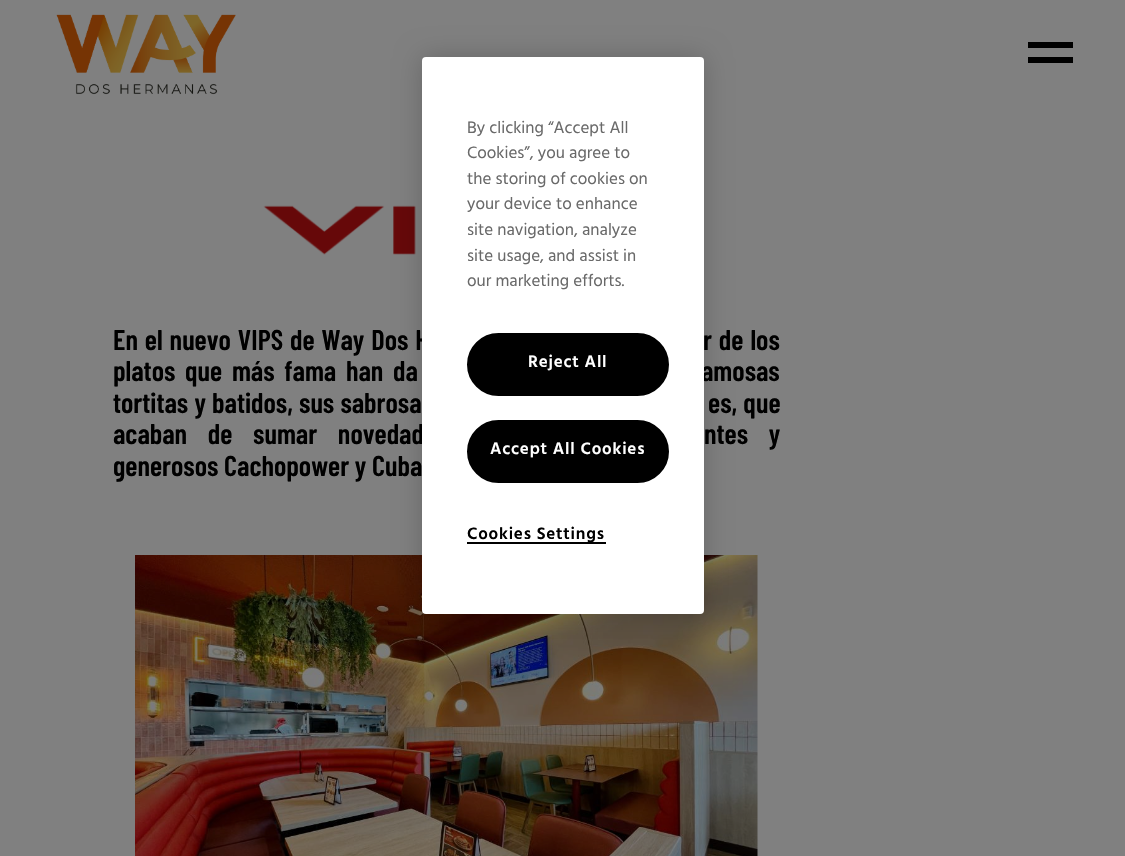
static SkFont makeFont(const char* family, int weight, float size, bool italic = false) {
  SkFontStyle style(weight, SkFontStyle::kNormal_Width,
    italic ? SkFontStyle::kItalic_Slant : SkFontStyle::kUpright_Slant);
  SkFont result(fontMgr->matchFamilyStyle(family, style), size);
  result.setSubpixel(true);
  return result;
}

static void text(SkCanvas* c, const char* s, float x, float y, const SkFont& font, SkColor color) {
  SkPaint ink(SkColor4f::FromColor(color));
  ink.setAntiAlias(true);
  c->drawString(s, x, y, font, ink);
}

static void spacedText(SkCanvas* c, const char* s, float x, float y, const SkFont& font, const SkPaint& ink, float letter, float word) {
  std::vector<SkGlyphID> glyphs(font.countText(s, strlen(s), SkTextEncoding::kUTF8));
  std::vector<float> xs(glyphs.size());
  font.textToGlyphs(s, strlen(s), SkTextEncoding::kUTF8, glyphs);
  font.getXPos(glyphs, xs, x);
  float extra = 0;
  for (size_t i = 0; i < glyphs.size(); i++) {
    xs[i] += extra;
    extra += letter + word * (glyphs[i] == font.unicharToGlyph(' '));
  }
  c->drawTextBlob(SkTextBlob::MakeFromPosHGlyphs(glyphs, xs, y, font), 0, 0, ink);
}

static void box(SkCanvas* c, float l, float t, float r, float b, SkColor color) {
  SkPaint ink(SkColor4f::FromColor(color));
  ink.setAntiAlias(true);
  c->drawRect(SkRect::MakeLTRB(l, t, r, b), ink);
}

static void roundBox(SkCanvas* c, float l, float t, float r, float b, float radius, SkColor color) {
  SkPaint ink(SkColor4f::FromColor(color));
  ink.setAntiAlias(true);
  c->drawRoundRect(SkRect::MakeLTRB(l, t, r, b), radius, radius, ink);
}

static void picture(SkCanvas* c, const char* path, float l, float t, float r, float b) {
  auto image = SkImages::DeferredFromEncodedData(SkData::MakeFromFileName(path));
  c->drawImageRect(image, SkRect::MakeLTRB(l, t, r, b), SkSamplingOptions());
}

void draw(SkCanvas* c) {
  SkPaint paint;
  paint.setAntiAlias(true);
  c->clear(0xff808080);
  picture(c, "img_02.png", 263, 205, 416, 255);
  picture(c, "img_03.png", 135, 555, 758, 856);
  paint.setColor(0x33000000);
  paint.setMaskFilter(SkMaskFilter::MakeBlur(kNormal_SkBlurStyle, 13.5f));
  c->drawRoundRect(SkRect::MakeLTRB(422, 57, 704, 614), 4, 4, paint);
  paint.setMaskFilter(nullptr);
  SkFont face1 = makeFont("Barlow Condensed", 600, 28.5f);
  paint.setColor(0xff000000);
  spacedText(c, "En el nuevo VIPS de Way Dos H", 113, 350, face1, paint, 0, 1.25f);
  spacedText(c, "amosas", 701, 381, face1, paint, 0, 4);
  spacedText(c, "acaban de sumar novedad", 113, 444, face1, paint, 0, 15);
  roundBox(c, 422, 57, 704, 614, 4, 0xffffffff);
  SkFont face2 = makeFont("Hind", 400, 17);
  text(c, "By clicking “Accept All", 467, 133, face2, 0xff696969);
  text(c, "Cookies”, you agree to", 467, 158, face2, 0xff696969);
  text(c, "the storing of cookies on", 467, 184, face2, 0xff696969);
  text(c, "your device to enhance", 467, 209, face2, 0xff696969);
  text(c, "site navigation, analyze", 467, 235, face2, 0xff696969);
  text(c, "site usage, and assist in", 467, 261, face2, 0xff696969);
  text(c, "our marketing efforts.", 467, 286, face2, 0xff696969);
  c->drawRoundRect(SkRect::MakeLTRB(468, 334, 668, 395), 30.5f, 30.5f, paint);
  paint.setStyle(SkPaint::kStroke_Style);
  paint.setStrokeWidth(2);
  c->drawRoundRect(SkRect::MakeLTRB(468, 334, 668, 395), 30.5f, 30.5f, paint);
  SkFont face3 = makeFont("Hind", 600, 17);
  paint.setStyle(SkPaint::kFill_Style);
  paint.setColor(0xffffffff);
  spacedText(c, "Reject All", 528, 367, face3, paint, 0.8f, 0);
  paint.setColor(0xff000000);
  c->drawRoundRect(SkRect::MakeLTRB(468, 421, 668, 482), 30.5f, 30.5f, paint);
  paint.setStyle(SkPaint::kStroke_Style);
  c->drawRoundRect(SkRect::MakeLTRB(468, 421, 668, 482), 30.5f, 30.5f, paint);
  paint.setStyle(SkPaint::kFill_Style);
  paint.setColor(0xffffffff);
  spacedText(c, "Accept All Cookies", 490, 454, face3, paint, 0.8f, 0);
  box(c, 467, 542, 606, 544, 0xff000000);
  paint.setColor(0xff000000);
  spacedText(c, "Cookies Settings", 467, 539, face3, paint, 0.8f, 0);
  picture(c, "img_01.png", 56, 14, 236, 95);
  box(c, 1028, 42, 1073, 48, 0xff000000);
  box(c, 1028, 57, 1073, 63, 0xff000000);
  spacedText(c, "r de los", 703, 350, face1, paint, 0, 1.25f);
  spacedText(c, "platos que más fama han da", 113, 381, face1, paint, 0, 4);
  spacedText(c, "tortitas y batidos, sus sabrosa", 113, 413, face1, paint, 0, 0.5f);
  spacedText(c, "es, que", 708, 413, face1, paint, 0, 0.5f);
  spacedText(c, "ntes y", 704, 444, face1, paint, 0, 15);
  text(c, "generosos Cachopower y Cuba", 113, 476, face1, 0xff000000);
}
